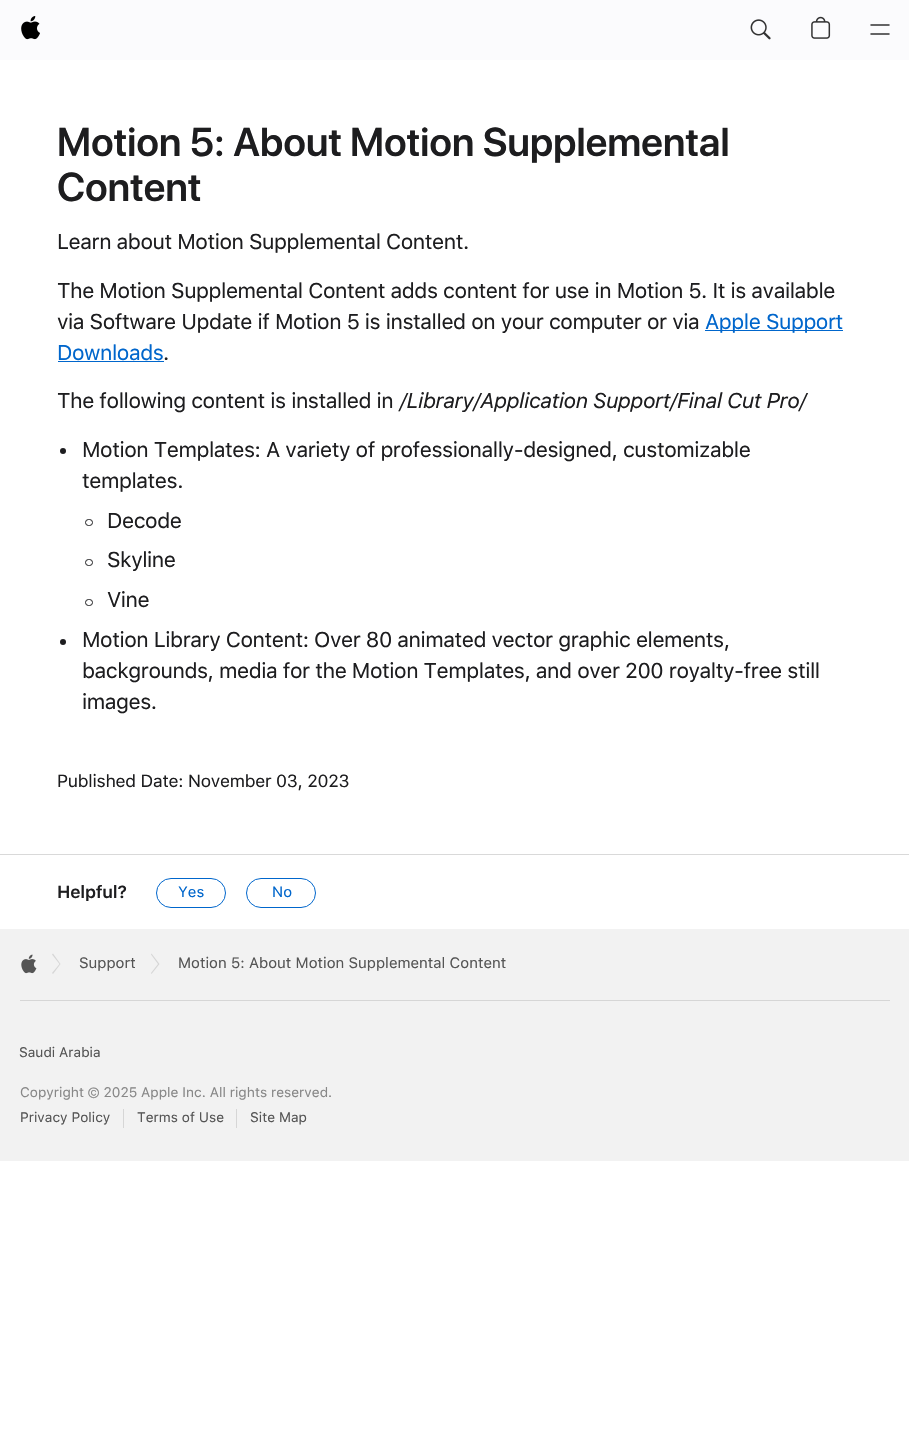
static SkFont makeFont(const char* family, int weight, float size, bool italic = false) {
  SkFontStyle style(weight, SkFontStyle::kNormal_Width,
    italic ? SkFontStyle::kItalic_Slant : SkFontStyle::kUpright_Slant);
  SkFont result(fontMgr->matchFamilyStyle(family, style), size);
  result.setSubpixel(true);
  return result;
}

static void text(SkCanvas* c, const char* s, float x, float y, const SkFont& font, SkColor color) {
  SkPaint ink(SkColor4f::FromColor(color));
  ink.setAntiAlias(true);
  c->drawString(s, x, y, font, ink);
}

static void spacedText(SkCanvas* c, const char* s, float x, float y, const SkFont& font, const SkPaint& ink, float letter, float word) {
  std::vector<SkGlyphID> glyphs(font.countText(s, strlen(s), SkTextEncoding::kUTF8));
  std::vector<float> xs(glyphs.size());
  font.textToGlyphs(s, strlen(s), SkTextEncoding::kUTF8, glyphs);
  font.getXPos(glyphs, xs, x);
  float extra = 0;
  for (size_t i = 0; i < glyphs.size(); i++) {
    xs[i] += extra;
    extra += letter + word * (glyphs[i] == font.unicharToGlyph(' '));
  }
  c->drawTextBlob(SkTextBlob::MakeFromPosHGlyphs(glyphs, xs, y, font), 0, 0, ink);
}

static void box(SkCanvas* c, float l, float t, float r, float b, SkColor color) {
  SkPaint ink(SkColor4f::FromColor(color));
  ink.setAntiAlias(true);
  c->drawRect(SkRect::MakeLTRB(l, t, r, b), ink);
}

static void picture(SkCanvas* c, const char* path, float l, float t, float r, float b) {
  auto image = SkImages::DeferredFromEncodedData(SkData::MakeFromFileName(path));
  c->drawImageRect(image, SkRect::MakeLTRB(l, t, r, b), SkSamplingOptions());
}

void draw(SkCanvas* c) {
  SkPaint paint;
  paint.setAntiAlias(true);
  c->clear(0xffffffff);
  box(c, 0, 0, 909, 60, 0xfffbfbfd);
  picture(c, "img_01.png", 21, 16, 40, 40);
  picture(c, "img_02.png", 750, 19, 771, 40);
  picture(c, "img_03.png", 811, 16, 831, 39);
  paint.setStyle(SkPaint::kStroke_Style);
  paint.setStrokeWidth(1.5f);
  paint.setStrokeCap(SkPaint::kRound_Cap);
  paint.setStrokeJoin(SkPaint::kRound_Join);
  paint.setColor(0xff323233);
  c->drawPath(SkPathBuilder().moveTo(871, 34).lineTo(889, 34).moveTo(871, 25).lineTo(889, 25).detach(), paint);
  SkFont face1 = makeFont("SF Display", 600, 40);
  paint.setStyle(SkPaint::kFill_Style);
  paint.setColor(0xff1d1d1f);
  spacedText(c, "Motion 5: About Motion Supplemental", 57, 156, face1, paint, 0.15f, 0);
  spacedText(c, "Content", 57, 201, face1, paint, 0.15f, 0);
  SkFont face2 = makeFont("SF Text", 400, 21.25f);
  spacedText(c, "Learn about Motion Supplemental Content.", 57, 249, face2, paint, -0.47f, 0);
  spacedText(c, "The Motion Supplemental Content adds content for use in Motion 5. It is available", 57, 298, face2, paint, -0.47f, 0);
  spacedText(c, "via Software Update if Motion 5 is installed on your computer or via", 57, 329, face2, paint, -0.47f, 0);
  box(c, 705, 330, 843, 331, 0xff0066cc);
  paint.setColor(0xff0066cc);
  spacedText(c, "Apple Support", 705, 329, face2, paint, -0.47f, 0);
  spacedText(c, "Downloads", 57, 360, face2, paint, -0.47f, 0);
  box(c, 58, 361, 164, 362, 0xff0066cc);
  paint.setColor(0xff1d1d1f);
  spacedText(c, ".", 163, 360, face2, paint, -0.47f, 0);
  spacedText(c, "The following content is installed in", 57, 408, face2, paint, -0.47f, 0);
  SkFont face3 = makeFont("SF Text", 400, 21.25f, true);
  spacedText(c, "/Library/Application Support/Final Cut Pro/", 399, 408, face3, paint, -0.47f, 0);
  c->drawCircle(63, 451, 3, paint);
  spacedText(c, "Motion Templates: A variety of professionally-designed, customizable", 82, 457, face2, paint, -0.47f, 0);
  spacedText(c, "templates.", 82, 488, face2, paint, -0.47f, 0);
  paint.setStyle(SkPaint::kStroke_Style);
  paint.setStrokeWidth(1);
  paint.setStrokeCap(SkPaint::kButt_Cap);
  paint.setStrokeJoin(SkPaint::kMiter_Join);
  c->drawRoundRect(SkRect::MakeLTRB(85.5f, 519.5f, 92.5f, 525.5f), 3, 3, paint);
  paint.setStyle(SkPaint::kFill_Style);
  spacedText(c, "Decode", 107, 528, face2, paint, -0.47f, 0);
  paint.setStyle(SkPaint::kStroke_Style);
  c->drawRoundRect(SkRect::MakeLTRB(85.5f, 559.5f, 92.5f, 565.5f), 3, 3, paint);
  paint.setStyle(SkPaint::kFill_Style);
  spacedText(c, "Skyline", 107, 567, face2, paint, -0.47f, 0);
  paint.setStyle(SkPaint::kStroke_Style);
  c->drawRoundRect(SkRect::MakeLTRB(85.5f, 599.5f, 92.5f, 605.5f), 3, 3, paint);
  paint.setStyle(SkPaint::kFill_Style);
  spacedText(c, "Vine", 107, 607, face2, paint, -0.47f, 0);
  c->drawCircle(63, 642, 3, paint);
  spacedText(c, "Motion Library Content: Over 80 animated vector graphic elements,", 82, 647, face2, paint, -0.47f, 0);
  spacedText(c, "backgrounds, media for the Motion Templates, and over 200 royalty-free still", 82, 678, face2, paint, -0.47f, 0);
  spacedText(c, "images.", 82, 709, face2, paint, -0.47f, 0);
  SkFont face4 = makeFont("SF Text", 400, 17.5f);
  spacedText(c, "Published Date: November 03, 2023", 57, 787, face4, paint, -0.25f, 0);
  box(c, 0, 854, 909, 855, 0xffd9d9d9);
  SkFont face5 = makeFont("SF Text", 600, 17.5f);
  spacedText(c, "Helpful?", 57, 898, face5, paint, -0.25f, 0);
  paint.setStyle(SkPaint::kStroke_Style);
  paint.setColor(0xff0066cc);
  c->drawRoundRect(SkRect::MakeLTRB(156.5f, 878.5f, 225.5f, 907.5f), 14.5f, 14.5f, paint);
  SkFont face6 = makeFont("SF Text", 400, 15);
  text(c, "Yes", 178, 897, face6, 0xff0066cc);
  c->drawRoundRect(SkRect::MakeLTRB(246.5f, 878.5f, 315.5f, 907.5f), 14.5f, 14.5f, paint);
  text(c, "No", 272, 897, face6, 0xff0066cc);
  box(c, 0, 929, 909, 1161, 0xfff2f2f2);
  box(c, 20, 1000, 890, 1001, 0xffd6d6d6);
  picture(c, "img_04.png", 21, 954, 37, 974);
  paint.setStyle(SkPaint::kFill_Style);
  paint.setColor(0xffd6d6d6);
  c->drawPath(SkPathBuilder().moveTo(53, 953.5f).lineTo(60.5f, 964).lineTo(53, 974).lineTo(52, 973).lineTo(59.5f, 964).lineTo(52, 954.5f).close().detach(), paint);
  text(c, "Support", 79, 968, face6, 0xff555555);
  c->drawPath(SkPathBuilder().moveTo(151.5f, 953.5f).lineTo(159.5f, 964).lineTo(151.5f, 974).lineTo(151, 973).lineTo(158, 964).lineTo(151, 954.5f).close().detach(), paint);
  text(c, "Motion 5: About Motion Supplemental Content", 178, 968, face6, 0xff555555);
  SkFont face7 = makeFont("SF Text", 400, 13.75f);
  text(c, "Saudi Arabia", 19, 1057, face7, 0xff555555);
  text(c, "Copyright © 2025 Apple Inc. All rights reserved.", 20, 1097, face7, 0xff888888);
  box(c, 123, 1109, 124, 1128, 0xffd6d6d6);
  text(c, "Privacy Policy", 20, 1122, face7, 0xff555555);
  box(c, 236, 1109, 237, 1128, 0xffd6d6d6);
  text(c, "Terms of Use", 137, 1122, face7, 0xff555555);
  text(c, "Site Map", 250, 1122, face7, 0xff555555);
}
